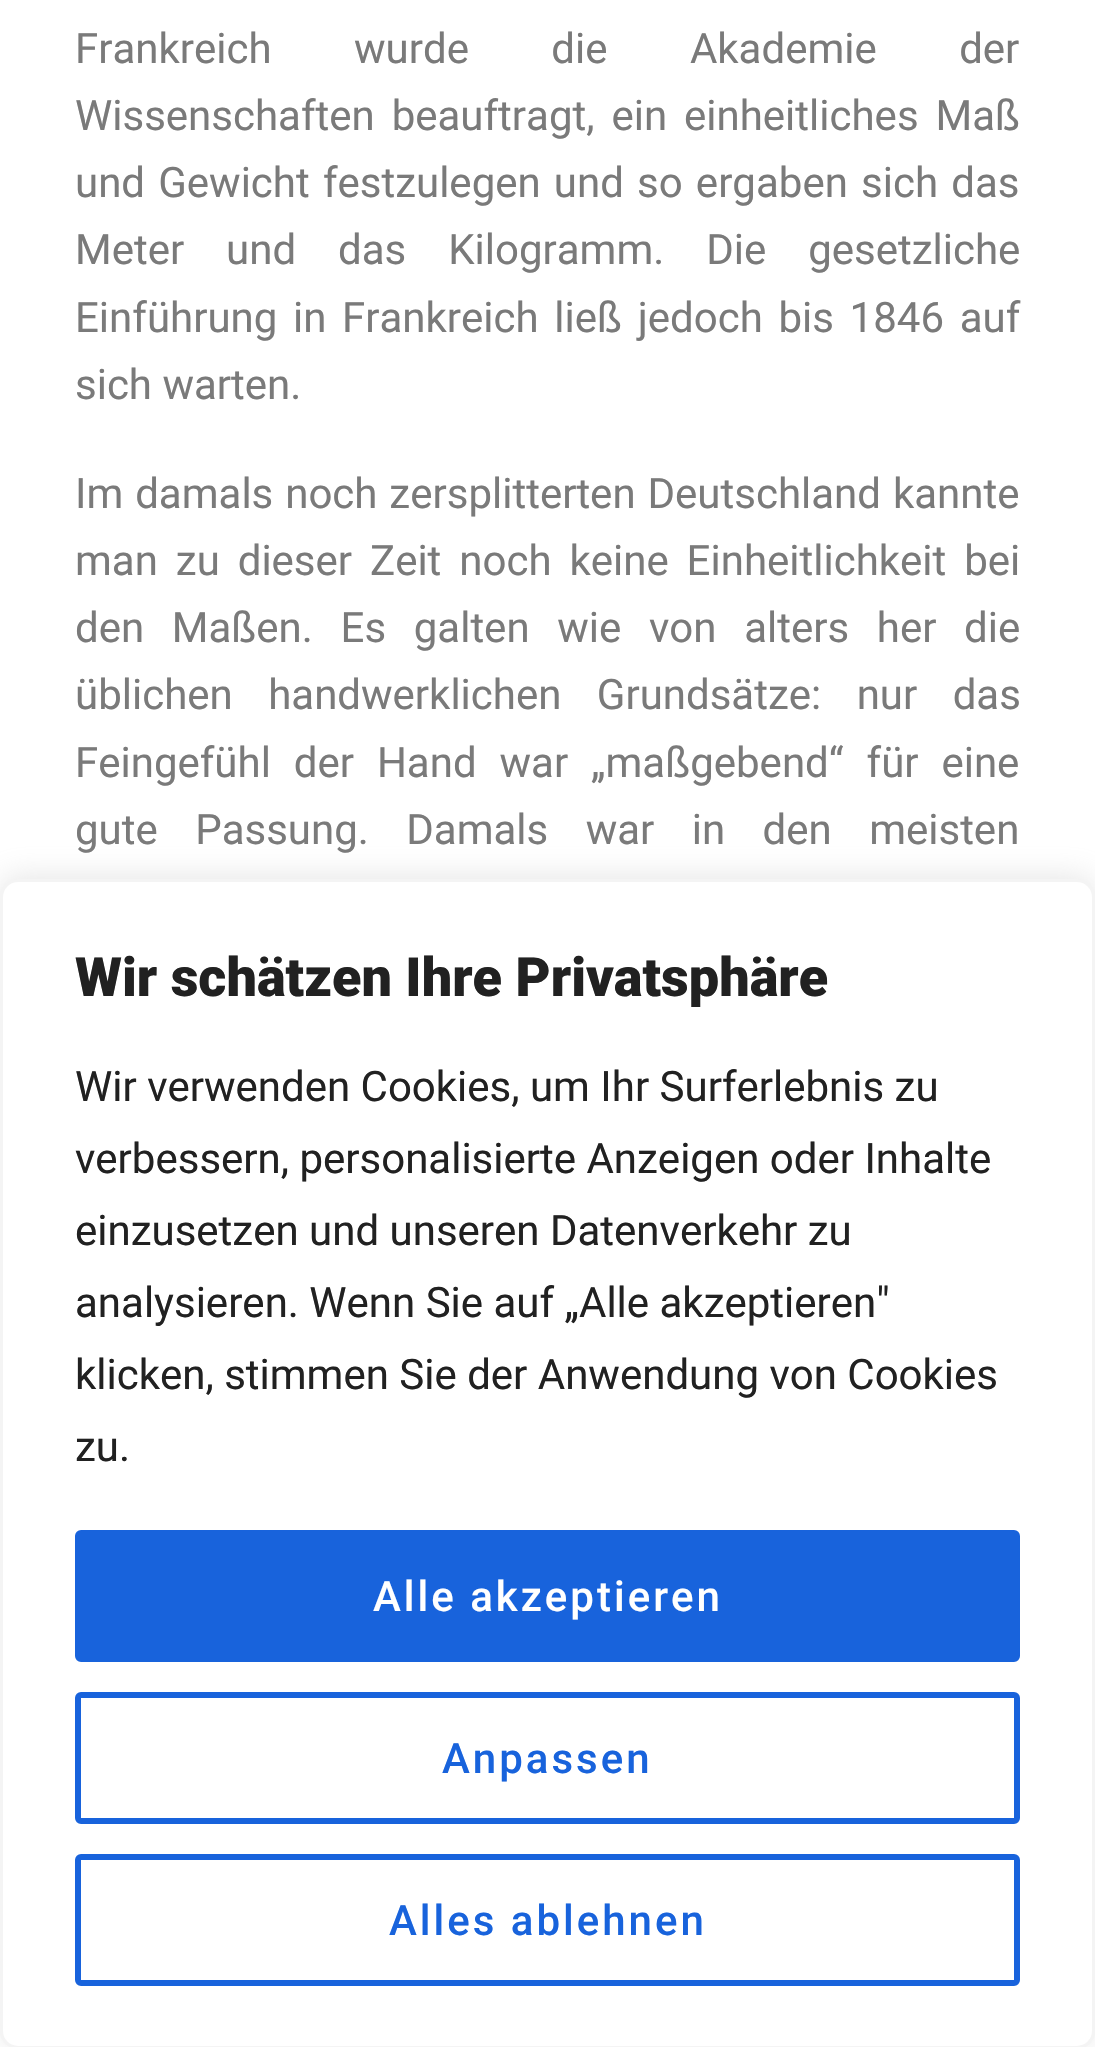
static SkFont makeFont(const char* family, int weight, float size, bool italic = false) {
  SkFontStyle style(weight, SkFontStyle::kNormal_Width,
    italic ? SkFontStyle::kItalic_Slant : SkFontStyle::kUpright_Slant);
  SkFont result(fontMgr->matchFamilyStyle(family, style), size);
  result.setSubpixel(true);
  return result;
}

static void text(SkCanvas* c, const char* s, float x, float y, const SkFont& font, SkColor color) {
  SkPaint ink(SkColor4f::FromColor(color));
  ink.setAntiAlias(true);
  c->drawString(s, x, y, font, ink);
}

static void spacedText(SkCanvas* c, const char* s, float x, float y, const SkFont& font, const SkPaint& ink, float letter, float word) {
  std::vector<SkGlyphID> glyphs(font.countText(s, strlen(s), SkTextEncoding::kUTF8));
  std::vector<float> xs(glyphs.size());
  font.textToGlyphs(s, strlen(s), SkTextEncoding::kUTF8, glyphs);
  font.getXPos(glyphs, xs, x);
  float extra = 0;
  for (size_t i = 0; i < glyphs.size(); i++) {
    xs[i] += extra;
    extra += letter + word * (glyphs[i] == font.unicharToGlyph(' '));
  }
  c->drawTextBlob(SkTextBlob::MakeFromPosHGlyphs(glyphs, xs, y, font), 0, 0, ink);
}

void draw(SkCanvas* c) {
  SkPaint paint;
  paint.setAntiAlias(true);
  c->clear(0xffffffff);
  SkFont face1 = makeFont("Roboto", 400, 42);
  paint.setColor(0xff7a7a7a);
  spacedText(c, "Frankreich wurde die Akademie der", 75, 63, face1, paint, 0, 72);
  spacedText(c, "Wissenschaften beauftragt, ein einheitliches Maß", 75, 130, face1, paint, 0, 6.5f);
  spacedText(c, "und Gewicht festzulegen und so ergaben sich das", 75, 197, face1, paint, 0, 2.75f);
  spacedText(c, "Meter und das Kilogramm. Die gesetzliche", 75, 264, face1, paint, 0, 31.5f);
  spacedText(c, "Einführung in Frankreich ließ jedoch bis 1846 auf", 75, 332, face1, paint, 0, 5.25f);
  text(c, "sich warten.", 75, 399, face1, 0xff7a7a7a);
  spacedText(c, "Im damals noch zersplitterten Deutschland kannte", 75, 508, face1, paint, 0, 1.5f);
  spacedText(c, "man zu dieser Zeit noch keine Einheitlichkeit bei", 75, 575, face1, paint, 0, 7.5f);
  spacedText(c, "den Maßen. Es galten wie von alters her die", 75, 642, face1, paint, 0, 17.25f);
  spacedText(c, "üblichen handwerklichen Grundsätze: nur das", 75, 709, face1, paint, 0, 25);
  spacedText(c, "Feingefühl der Hand war „maßgebend“ für eine", 75, 777, face1, paint, 0, 12.5f);
  spacedText(c, "gute Passung. Damals war in den meisten", 75, 844, face1, paint, 0, 27);
  paint.setColor(0x4dacabab);
  paint.setMaskFilter(SkMaskFilter::MakeBlur(kNormal_SkBlurStyle, 15));
  c->drawRoundRect(SkRect::MakeLTRB(0, 876, 1095, 2046), 18, 18, paint);
  paint.setMaskFilter(nullptr);
  paint.setColor(0xffffffff);
  c->drawRoundRect(SkRect::MakeLTRB(1.5f, 880.5f, 1093.5f, 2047.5f), 16.5f, 16.5f, paint);
  paint.setStyle(SkPaint::kStroke_Style);
  paint.setStrokeWidth(3);
  paint.setColor(0xfff4f4f4);
  c->drawRoundRect(SkRect::MakeLTRB(1.5f, 880.5f, 1093.5f, 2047.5f), 16.5f, 16.5f, paint);
  SkFont face2 = makeFont("Roboto", 900, 54);
  text(c, "Wir schätzen Ihre Privatsphäre", 75, 996, face2, 0xff212121);
  text(c, "Wir verwenden Cookies, um Ihr Surferlebnis zu", 75, 1101, face1, 0xff212121);
  text(c, "verbessern, personalisierte Anzeigen oder Inhalte", 75, 1173, face1, 0xff212121);
  text(c, "einzusetzen und unseren Datenverkehr zu", 75, 1245, face1, 0xff212121);
  text(c, "analysieren. Wenn Sie auf „Alle akzeptieren\"", 75, 1317, face1, 0xff212121);
  text(c, "klicken, stimmen Sie der Anwendung von Cookies", 75, 1389, face1, 0xff212121);
  text(c, "zu.", 75, 1461, face1, 0xff212121);
  paint.setStyle(SkPaint::kFill_Style);
  paint.setColor(0xff1863dc);
  c->drawRoundRect(SkRect::MakeLTRB(78, 1533, 1017, 1659), 3, 3, paint);
  paint.setStyle(SkPaint::kStroke_Style);
  paint.setStrokeWidth(6);
  c->drawRoundRect(SkRect::MakeLTRB(78, 1533, 1017, 1659), 3, 3, paint);
  SkFont face3 = makeFont("Roboto", 500, 42);
  paint.setStyle(SkPaint::kFill_Style);
  paint.setColor(0xffffffff);
  spacedText(c, "Alle akzeptieren", 373, 1611, face3, paint, 3, 0);
  paint.setStyle(SkPaint::kStroke_Style);
  paint.setColor(0xff1863dc);
  c->drawRoundRect(SkRect::MakeLTRB(78, 1695, 1017, 1821), 3, 3, paint);
  paint.setStyle(SkPaint::kFill_Style);
  spacedText(c, "Anpassen", 442, 1773, face3, paint, 3, 0);
  paint.setStyle(SkPaint::kStroke_Style);
  c->drawRoundRect(SkRect::MakeLTRB(78, 1857, 1017, 1983), 3, 3, paint);
  paint.setStyle(SkPaint::kFill_Style);
  spacedText(c, "Alles ablehnen", 389, 1935, face3, paint, 3, 0);
}
